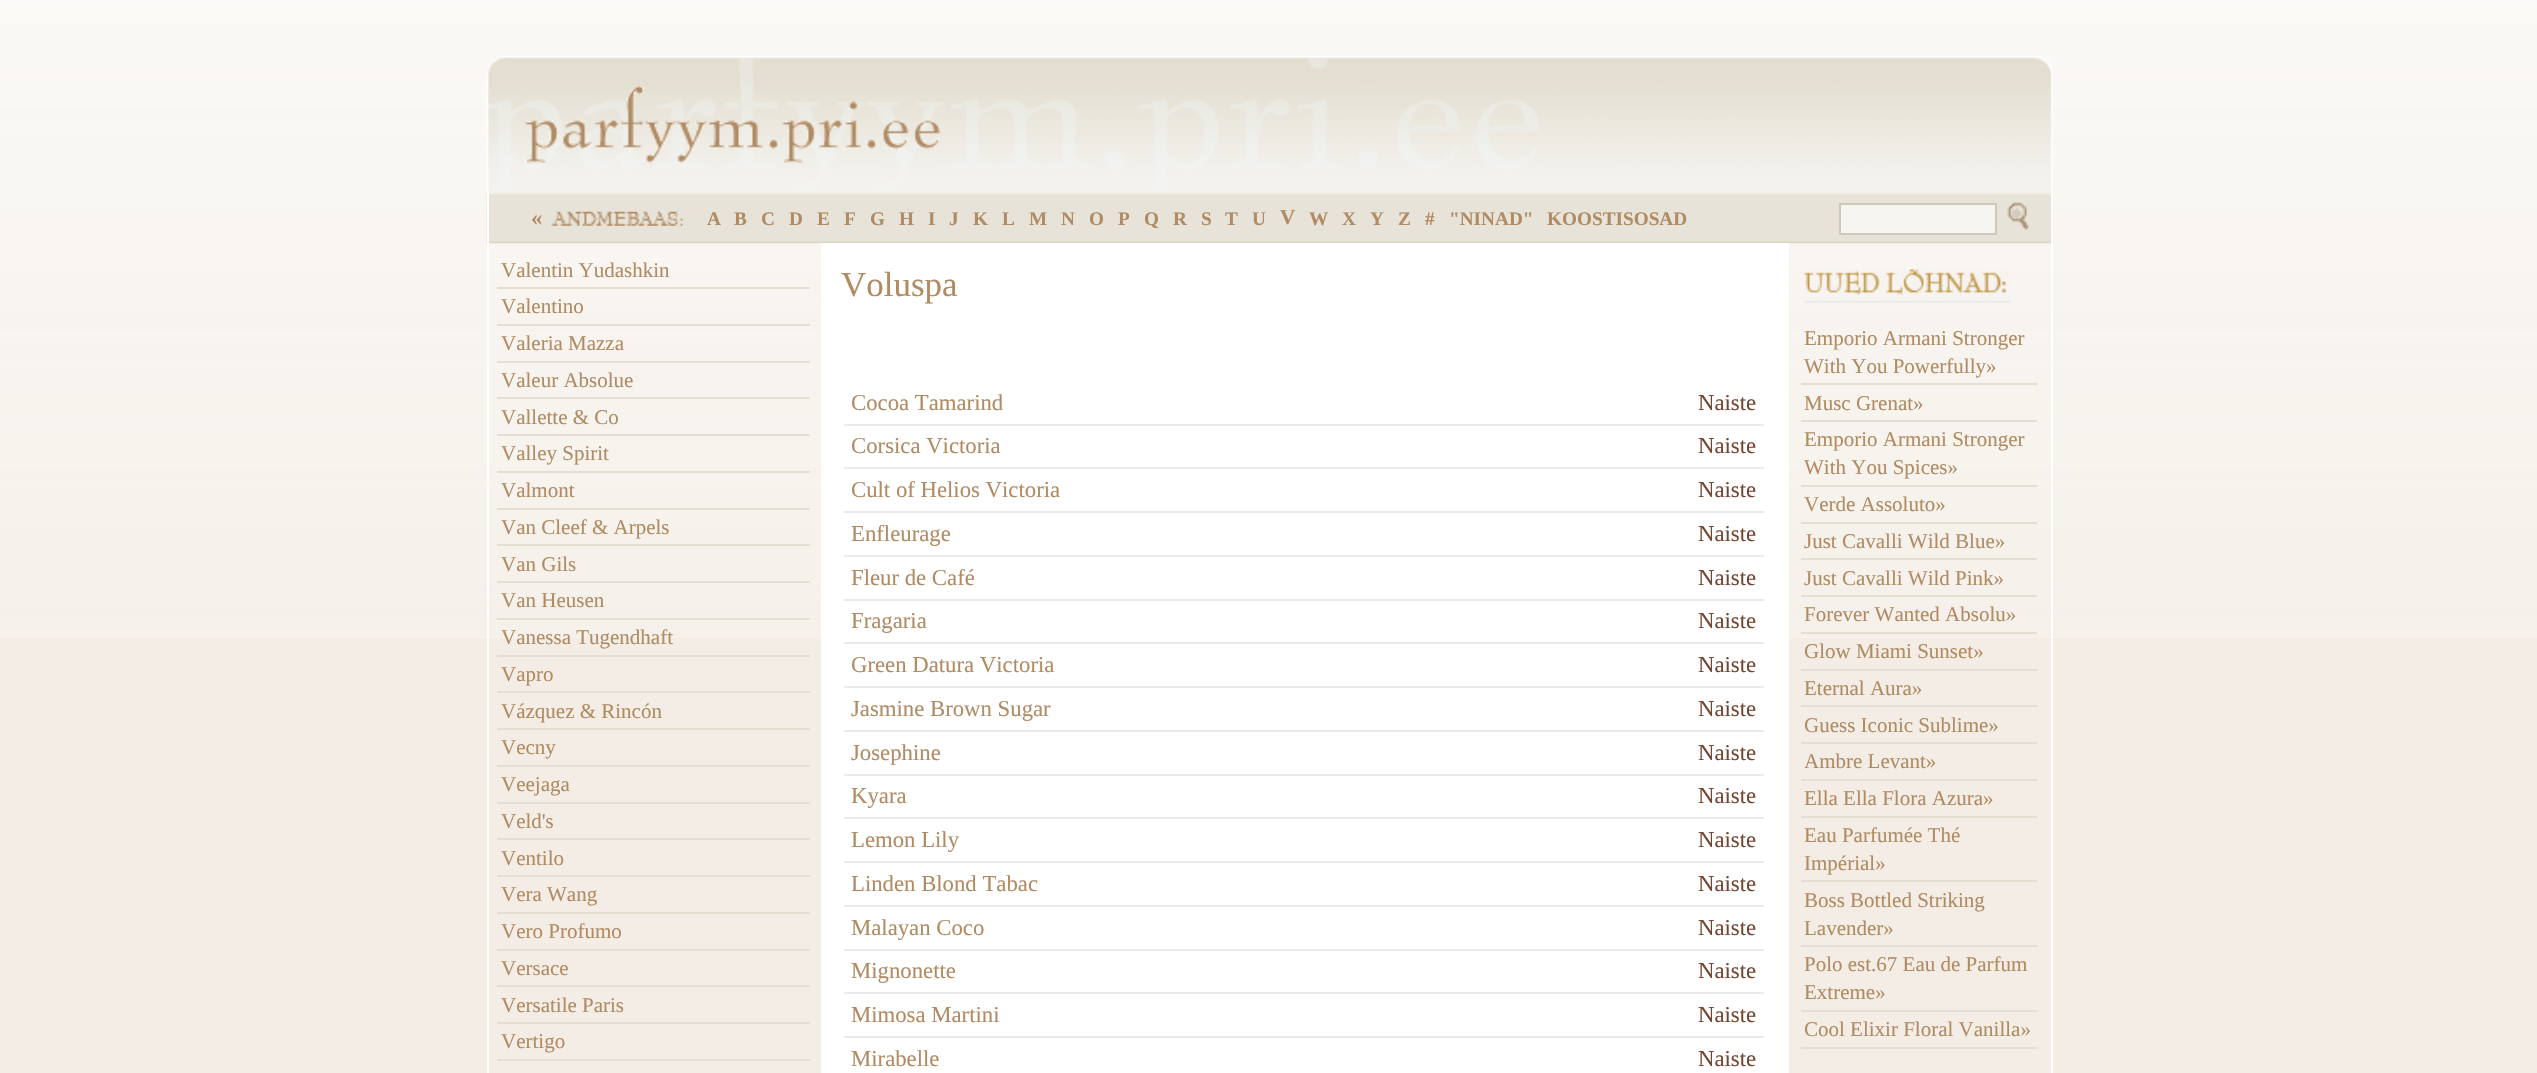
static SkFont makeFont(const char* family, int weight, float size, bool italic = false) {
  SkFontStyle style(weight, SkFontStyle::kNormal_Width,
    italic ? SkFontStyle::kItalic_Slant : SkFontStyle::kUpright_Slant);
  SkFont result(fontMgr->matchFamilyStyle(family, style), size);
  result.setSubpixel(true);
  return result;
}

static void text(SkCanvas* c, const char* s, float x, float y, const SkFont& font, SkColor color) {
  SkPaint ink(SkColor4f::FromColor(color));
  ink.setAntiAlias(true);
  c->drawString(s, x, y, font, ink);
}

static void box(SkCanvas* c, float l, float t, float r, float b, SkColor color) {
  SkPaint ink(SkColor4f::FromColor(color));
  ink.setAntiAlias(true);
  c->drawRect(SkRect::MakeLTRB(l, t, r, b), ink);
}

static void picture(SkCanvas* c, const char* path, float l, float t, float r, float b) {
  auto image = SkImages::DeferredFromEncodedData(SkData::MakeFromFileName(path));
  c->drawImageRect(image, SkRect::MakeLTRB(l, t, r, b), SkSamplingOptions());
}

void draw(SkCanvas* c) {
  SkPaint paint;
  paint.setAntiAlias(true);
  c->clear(0xfff3ede5);
  picture(c, "img_01.png", 0, 0, 2537, 638);
  picture(c, "img_02.png", 486, 56, 2053, 193);
  picture(c, "img_03.png", 525, 85, 940, 163);
  picture(c, "img_04.png", 486, 192, 2053, 244);
  box(c, 2051, 193, 2053, 1073, 0xffffffff);
  box(c, 487, 193, 489, 1073, 0xffffffff);
  SkFont face1 = makeFont("Liberation Serif", 700, 22.75f);
  text(c, "«", 531, 225, face1, 0xffb08b63);
  picture(c, "img_05.png", 551, 211, 683, 226);
  SkFont face2 = makeFont("Liberation Serif", 700, 19.25f);
  text(c, "A", 707, 225, face2, 0xffb08b63);
  text(c, "B", 734, 225, face2, 0xffb08b63);
  text(c, "C", 761, 225, face2, 0xffb08b63);
  text(c, "D", 789, 225, face2, 0xffb08b63);
  text(c, "E", 817, 225, face2, 0xffb08b63);
  text(c, "F", 844, 225, face2, 0xffb08b63);
  text(c, "G", 870, 225, face2, 0xffb08b63);
  text(c, "H", 899, 225, face2, 0xffb08b63);
  text(c, "I", 928, 225, face2, 0xffb08b63);
  text(c, "J", 949, 225, face2, 0xffb08b63);
  text(c, "K", 973, 225, face2, 0xffb08b63);
  text(c, "L", 1002, 225, face2, 0xffb08b63);
  text(c, "M", 1029, 225, face2, 0xffb08b63);
  text(c, "N", 1061, 225, face2, 0xffb08b63);
  text(c, "O", 1089, 225, face2, 0xffb08b63);
  text(c, "P", 1118, 225, face2, 0xffb08b63);
  text(c, "Q", 1144, 225, face2, 0xffb08b63);
  text(c, "R", 1173, 225, face2, 0xffb08b63);
  text(c, "S", 1201, 225, face2, 0xffb08b63);
  text(c, "T", 1225, 225, face2, 0xffb08b63);
  text(c, "U", 1252, 225, face2, 0xffb08b63);
  SkFont face3 = makeFont("Liberation Serif", 700, 21);
  text(c, "V", 1280, 224, face3, 0xffb08b63);
  text(c, "W", 1309, 225, face2, 0xffb08b63);
  text(c, "X", 1342, 225, face2, 0xffb08b63);
  text(c, "Y", 1370, 225, face2, 0xffb08b63);
  text(c, "Z", 1398, 225, face2, 0xffb08b63);
  text(c, "#", 1425, 225, face2, 0xffb08b63);
  text(c, "\"NINAD\"", 1449, 225, face2, 0xffb08b63);
  text(c, "KOOSTISOSAD", 1547, 225, face2, 0xffb08b63);
  paint.setColor(0xfff6f5f1);
  c->drawRect(SkRect::MakeLTRB(1840, 204, 1996, 234), paint);
  paint.setStyle(SkPaint::kStroke_Style);
  paint.setStrokeWidth(2);
  paint.setColor(0xffcfc9b8);
  c->drawRect(SkRect::MakeLTRB(1840, 204, 1996, 234), paint);
  picture(c, "img_06.png", 2007, 202, 2029, 230);
  box(c, 497, 287, 810, 289, 0xffe4dfd3);
  SkFont face4 = makeFont("Liberation Serif", 400, 21);
  text(c, "Valentin Yudashkin", 501, 277, face4, 0xffb08b63);
  box(c, 497, 324, 810, 326, 0xffe4dfd3);
  text(c, "Valentino", 501, 313, face4, 0xffb08b63);
  box(c, 497, 361, 810, 363, 0xffe4dfd3);
  text(c, "Valeria Mazza", 501, 350, face4, 0xffb08b63);
  box(c, 497, 397, 810, 399, 0xffe4dfd3);
  text(c, "Valeur Absolue", 501, 387, face4, 0xffb08b63);
  box(c, 497, 434, 810, 436, 0xffe4dfd3);
  text(c, "Vallette & Co", 501, 424, face4, 0xffb08b63);
  box(c, 497, 471, 810, 473, 0xffe4dfd3);
  text(c, "Valley Spirit", 501, 460, face4, 0xffb08b63);
  box(c, 497, 508, 810, 510, 0xffe4dfd3);
  text(c, "Valmont", 501, 497, face4, 0xffb08b63);
  box(c, 497, 544, 810, 546, 0xffe4dfd3);
  text(c, "Van Cleef & Arpels", 501, 534, face4, 0xffb08b63);
  box(c, 497, 581, 810, 583, 0xffe4dfd3);
  text(c, "Van Gils", 501, 571, face4, 0xffb08b63);
  box(c, 497, 618, 810, 620, 0xffe4dfd3);
  text(c, "Van Heusen", 501, 607, face4, 0xffb08b63);
  box(c, 497, 655, 810, 657, 0xffe4dfd3);
  text(c, "Vanessa Tugendhaft", 501, 644, face4, 0xffb08b63);
  box(c, 497, 691, 810, 693, 0xffe4dfd3);
  text(c, "Vapro", 501, 681, face4, 0xffb08b63);
  box(c, 497, 728, 810, 730, 0xffe4dfd3);
  text(c, "Vázquez & Rincón", 501, 718, face4, 0xffb08b63);
  box(c, 497, 765, 810, 767, 0xffe4dfd3);
  text(c, "Vecny", 501, 754, face4, 0xffb08b63);
  box(c, 497, 802, 810, 804, 0xffe4dfd3);
  text(c, "Veejaga", 501, 791, face4, 0xffb08b63);
  box(c, 497, 838, 810, 840, 0xffe4dfd3);
  text(c, "Veld's", 501, 828, face4, 0xffb08b63);
  box(c, 497, 875, 810, 877, 0xffe4dfd3);
  text(c, "Ventilo", 501, 865, face4, 0xffb08b63);
  box(c, 497, 912, 810, 914, 0xffe4dfd3);
  text(c, "Vera Wang", 501, 901, face4, 0xffb08b63);
  box(c, 497, 949, 810, 951, 0xffe4dfd3);
  text(c, "Vero Profumo", 501, 938, face4, 0xffb08b63);
  box(c, 497, 985, 810, 987, 0xffe4dfd3);
  text(c, "Versace", 501, 975, face4, 0xffb08b63);
  box(c, 497, 1022, 810, 1024, 0xffe4dfd3);
  text(c, "Versatile Paris", 501, 1012, face4, 0xffb08b63);
  box(c, 497, 1059, 810, 1061, 0xffe4dfd3);
  text(c, "Vertigo", 501, 1048, face4, 0xffb08b63);
  box(c, 821, 243, 1789, 1073, 0xffffffff);
  SkFont face5 = makeFont("Liberation Serif", 400, 35);
  text(c, "Voluspa", 841, 296, face5, 0xffb08b63);
  box(c, 844, 424, 1764, 426, 0xffeaeaea);
  SkFont face6 = makeFont("Liberation Serif", 400, 22.75f);
  text(c, "Cocoa Tamarind", 851, 410, face6, 0xffb08b63);
  text(c, "Naiste", 1698, 410, face6, 0xff754531);
  box(c, 844, 467, 1764, 469, 0xffeaeaea);
  text(c, "Corsica Victoria", 851, 453, face6, 0xffb08b63);
  text(c, "Naiste", 1698, 453, face6, 0xff754531);
  box(c, 844, 511, 1764, 513, 0xffeaeaea);
  text(c, "Cult of Helios Victoria", 851, 497, face6, 0xffb08b63);
  text(c, "Naiste", 1698, 497, face6, 0xff754531);
  box(c, 844, 555, 1764, 557, 0xffeaeaea);
  text(c, "Enfleurage", 851, 541, face6, 0xffb08b63);
  text(c, "Naiste", 1698, 541, face6, 0xff754531);
  box(c, 844, 599, 1764, 601, 0xffeaeaea);
  text(c, "Fleur de Café", 851, 585, face6, 0xffb08b63);
  text(c, "Naiste", 1698, 585, face6, 0xff754531);
  box(c, 844, 642, 1764, 644, 0xffeaeaea);
  text(c, "Fragaria", 851, 628, face6, 0xffb08b63);
  text(c, "Naiste", 1698, 628, face6, 0xff754531);
  box(c, 844, 686, 1764, 688, 0xffeaeaea);
  text(c, "Green Datura Victoria", 851, 672, face6, 0xffb08b63);
  text(c, "Naiste", 1698, 672, face6, 0xff754531);
  box(c, 844, 730, 1764, 732, 0xffeaeaea);
  text(c, "Jasmine Brown Sugar", 851, 716, face6, 0xffb08b63);
  text(c, "Naiste", 1698, 716, face6, 0xff754531);
  box(c, 844, 774, 1764, 776, 0xffeaeaea);
  text(c, "Josephine", 851, 760, face6, 0xffb08b63);
  text(c, "Naiste", 1698, 760, face6, 0xff754531);
  box(c, 844, 817, 1764, 819, 0xffeaeaea);
  text(c, "Kyara", 851, 803, face6, 0xffb08b63);
  text(c, "Naiste", 1698, 803, face6, 0xff754531);
  box(c, 844, 861, 1764, 863, 0xffeaeaea);
  text(c, "Lemon Lily", 851, 847, face6, 0xffb08b63);
  text(c, "Naiste", 1698, 847, face6, 0xff754531);
  box(c, 844, 905, 1764, 907, 0xffeaeaea);
  text(c, "Linden Blond Tabac", 851, 891, face6, 0xffb08b63);
  text(c, "Naiste", 1698, 891, face6, 0xff754531);
  box(c, 844, 949, 1764, 951, 0xffeaeaea);
  text(c, "Malayan Coco", 851, 935, face6, 0xffb08b63);
  text(c, "Naiste", 1698, 935, face6, 0xff754531);
  box(c, 844, 992, 1764, 994, 0xffeaeaea);
  text(c, "Mignonette", 851, 978, face6, 0xffb08b63);
  text(c, "Naiste", 1698, 978, face6, 0xff754531);
  box(c, 844, 1036, 1764, 1038, 0xffeaeaea);
  text(c, "Mimosa Martini", 851, 1022, face6, 0xffb08b63);
  text(c, "Naiste", 1698, 1022, face6, 0xff754531);
  text(c, "Mirabelle", 851, 1066, face6, 0xffb08b63);
  text(c, "Naiste", 1698, 1066, face6, 0xff754531);
  picture(c, "img_07.png", 1804, 269, 2011, 303);
  box(c, 1801, 383, 2037, 385, 0xffe4dfd3);
  text(c, "Emporio Armani Stronger", 1804, 345, face4, 0xffb08b63);
  text(c, "With You Powerfully»", 1804, 373, face4, 0xffb08b63);
  box(c, 1801, 420, 2037, 422, 0xffe4dfd3);
  text(c, "Musc Grenat»", 1804, 410, face4, 0xffb08b63);
  box(c, 1801, 485, 2037, 487, 0xffe4dfd3);
  text(c, "Emporio Armani Stronger", 1804, 446, face4, 0xffb08b63);
  text(c, "With You Spices»", 1804, 474, face4, 0xffb08b63);
  box(c, 1801, 522, 2037, 524, 0xffe4dfd3);
  text(c, "Verde Assoluto»", 1804, 511, face4, 0xffb08b63);
  box(c, 1801, 558, 2037, 560, 0xffe4dfd3);
  text(c, "Just Cavalli Wild Blue»", 1804, 548, face4, 0xffb08b63);
  box(c, 1801, 595, 2037, 597, 0xffe4dfd3);
  text(c, "Just Cavalli Wild Pink»", 1804, 585, face4, 0xffb08b63);
  box(c, 1801, 632, 2037, 634, 0xffe4dfd3);
  text(c, "Forever Wanted Absolu»", 1804, 621, face4, 0xffb08b63);
  box(c, 1801, 669, 2037, 671, 0xffe4dfd3);
  text(c, "Glow Miami Sunset»", 1804, 658, face4, 0xffb08b63);
  box(c, 1801, 705, 2037, 707, 0xffe4dfd3);
  text(c, "Eternal Aura»", 1804, 695, face4, 0xffb08b63);
  box(c, 1801, 742, 2037, 744, 0xffe4dfd3);
  text(c, "Guess Iconic Sublime»", 1804, 732, face4, 0xffb08b63);
  box(c, 1801, 779, 2037, 781, 0xffe4dfd3);
  text(c, "Ambre Levant»", 1804, 768, face4, 0xffb08b63);
  box(c, 1801, 816, 2037, 818, 0xffe4dfd3);
  text(c, "Ella Ella Flora Azura»", 1804, 805, face4, 0xffb08b63);
  box(c, 1801, 880, 2037, 882, 0xffe4dfd3);
  text(c, "Eau Parfumée Thé", 1804, 842, face4, 0xffb08b63);
  text(c, "Impérial»", 1804, 870, face4, 0xffb08b63);
  box(c, 1801, 945, 2037, 947, 0xffe4dfd3);
  text(c, "Boss Bottled Striking", 1804, 907, face4, 0xffb08b63);
  text(c, "Lavender»", 1804, 935, face4, 0xffb08b63);
  box(c, 1801, 1010, 2037, 1012, 0xffe4dfd3);
  text(c, "Polo est.67 Eau de Parfum", 1804, 971, face4, 0xffb08b63);
  text(c, "Extreme»", 1804, 999, face4, 0xffb08b63);
  box(c, 1801, 1047, 2037, 1049, 0xffe4dfd3);
  text(c, "Cool Elixir Floral Vanilla»", 1804, 1036, face4, 0xffb08b63);
}
